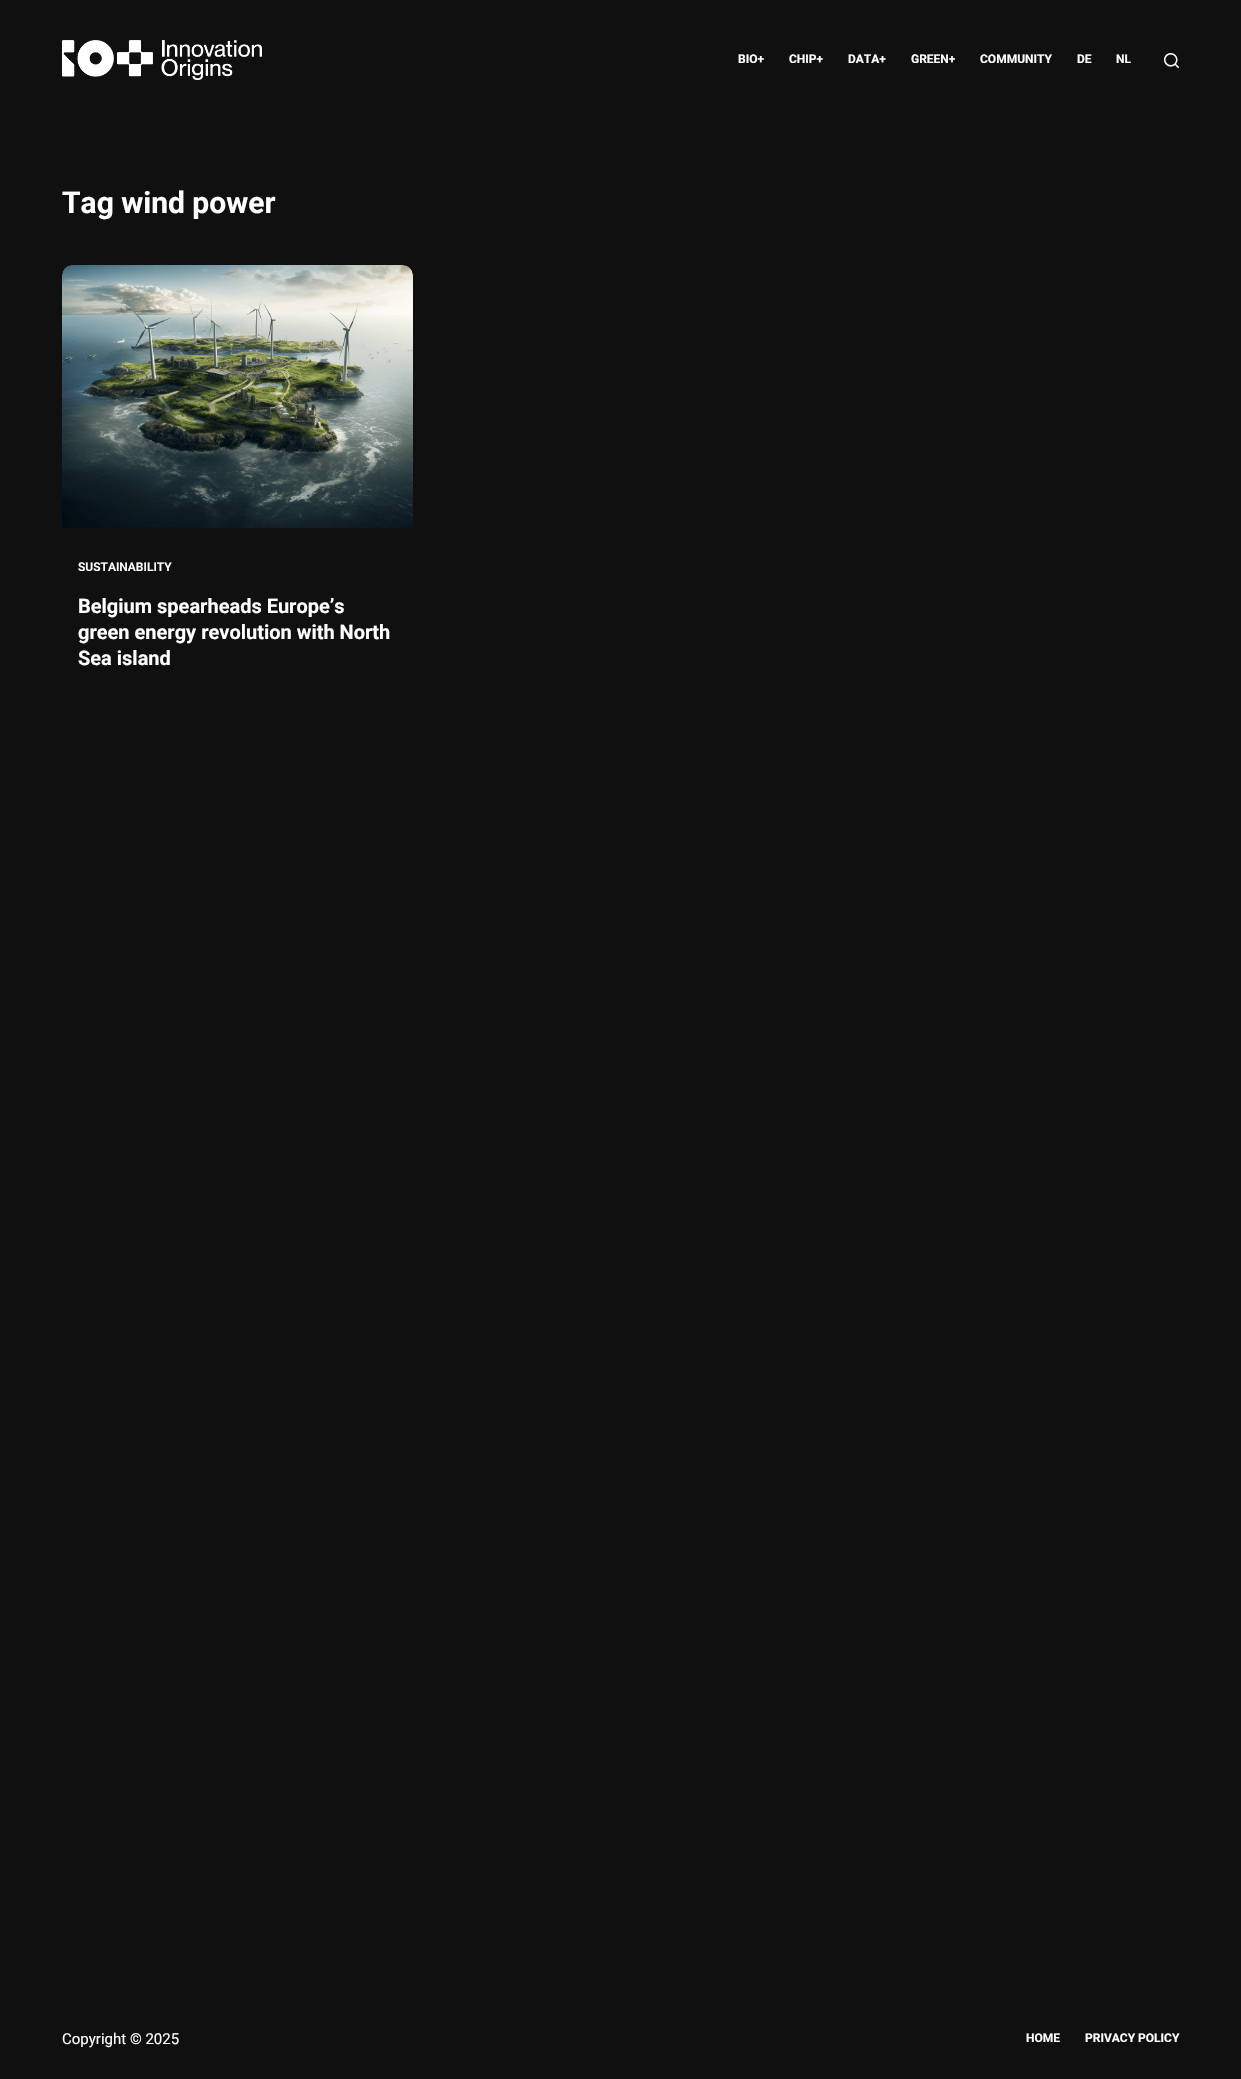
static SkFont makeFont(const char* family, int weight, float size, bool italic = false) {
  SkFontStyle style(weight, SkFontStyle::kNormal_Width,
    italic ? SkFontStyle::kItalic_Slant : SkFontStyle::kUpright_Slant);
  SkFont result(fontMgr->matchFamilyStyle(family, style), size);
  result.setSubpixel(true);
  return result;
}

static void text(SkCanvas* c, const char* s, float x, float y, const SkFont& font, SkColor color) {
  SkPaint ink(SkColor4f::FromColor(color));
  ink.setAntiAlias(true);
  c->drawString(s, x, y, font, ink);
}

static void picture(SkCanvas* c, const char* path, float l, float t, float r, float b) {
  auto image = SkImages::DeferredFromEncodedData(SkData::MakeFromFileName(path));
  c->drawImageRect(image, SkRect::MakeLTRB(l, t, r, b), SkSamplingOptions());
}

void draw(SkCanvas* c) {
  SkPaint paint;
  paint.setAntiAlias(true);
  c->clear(0xff101010);
  picture(c, "img_01.png", 62, 40, 262, 80);
  SkFont face1 = makeFont("Roboto", 700, 12);
  text(c, "BIO+", 738, 63, face1, 0xffffffff);
  text(c, "CHIP+", 789, 63, face1, 0xffffffff);
  text(c, "DATA+", 848, 63, face1, 0xffffffff);
  text(c, "GREEN+", 911, 63, face1, 0xffffffff);
  text(c, "COMMUNITY", 980, 63, face1, 0xffffffff);
  text(c, "DE", 1077, 63, face1, 0xffffffff);
  text(c, "NL", 1116, 63, face1, 0xffffffff);
  picture(c, "img_02.png", 1164, 53, 1179, 68);
  SkFont face2 = makeFont("Roboto", 700, 30);
  text(c, "Tag wind power", 62, 213, face2, 0xffffffff);
  picture(c, "img_03.png", 62, 265, 413, 528);
  SkFont face3 = makeFont("Roboto", 600, 12);
  text(c, "SUSTAINABILITY", 78, 571, face3, 0xffffffff);
  SkFont face4 = makeFont("Roboto", 700, 20);
  text(c, "Belgium spearheads Europe’s", 78, 613, face4, 0xffffffff);
  text(c, "green energy revolution with North", 78, 639, face4, 0xffffffff);
  text(c, "Sea island", 78, 665, face4, 0xffffffff);
  SkFont face5 = makeFont("Roboto", 400, 15);
  text(c, "Copyright © 2025", 62, 2044, face5, 0xffffffff);
  text(c, "HOME", 1026, 2042, face1, 0xffffffff);
  text(c, "PRIVACY POLICY", 1085, 2042, face1, 0xffffffff);
}
